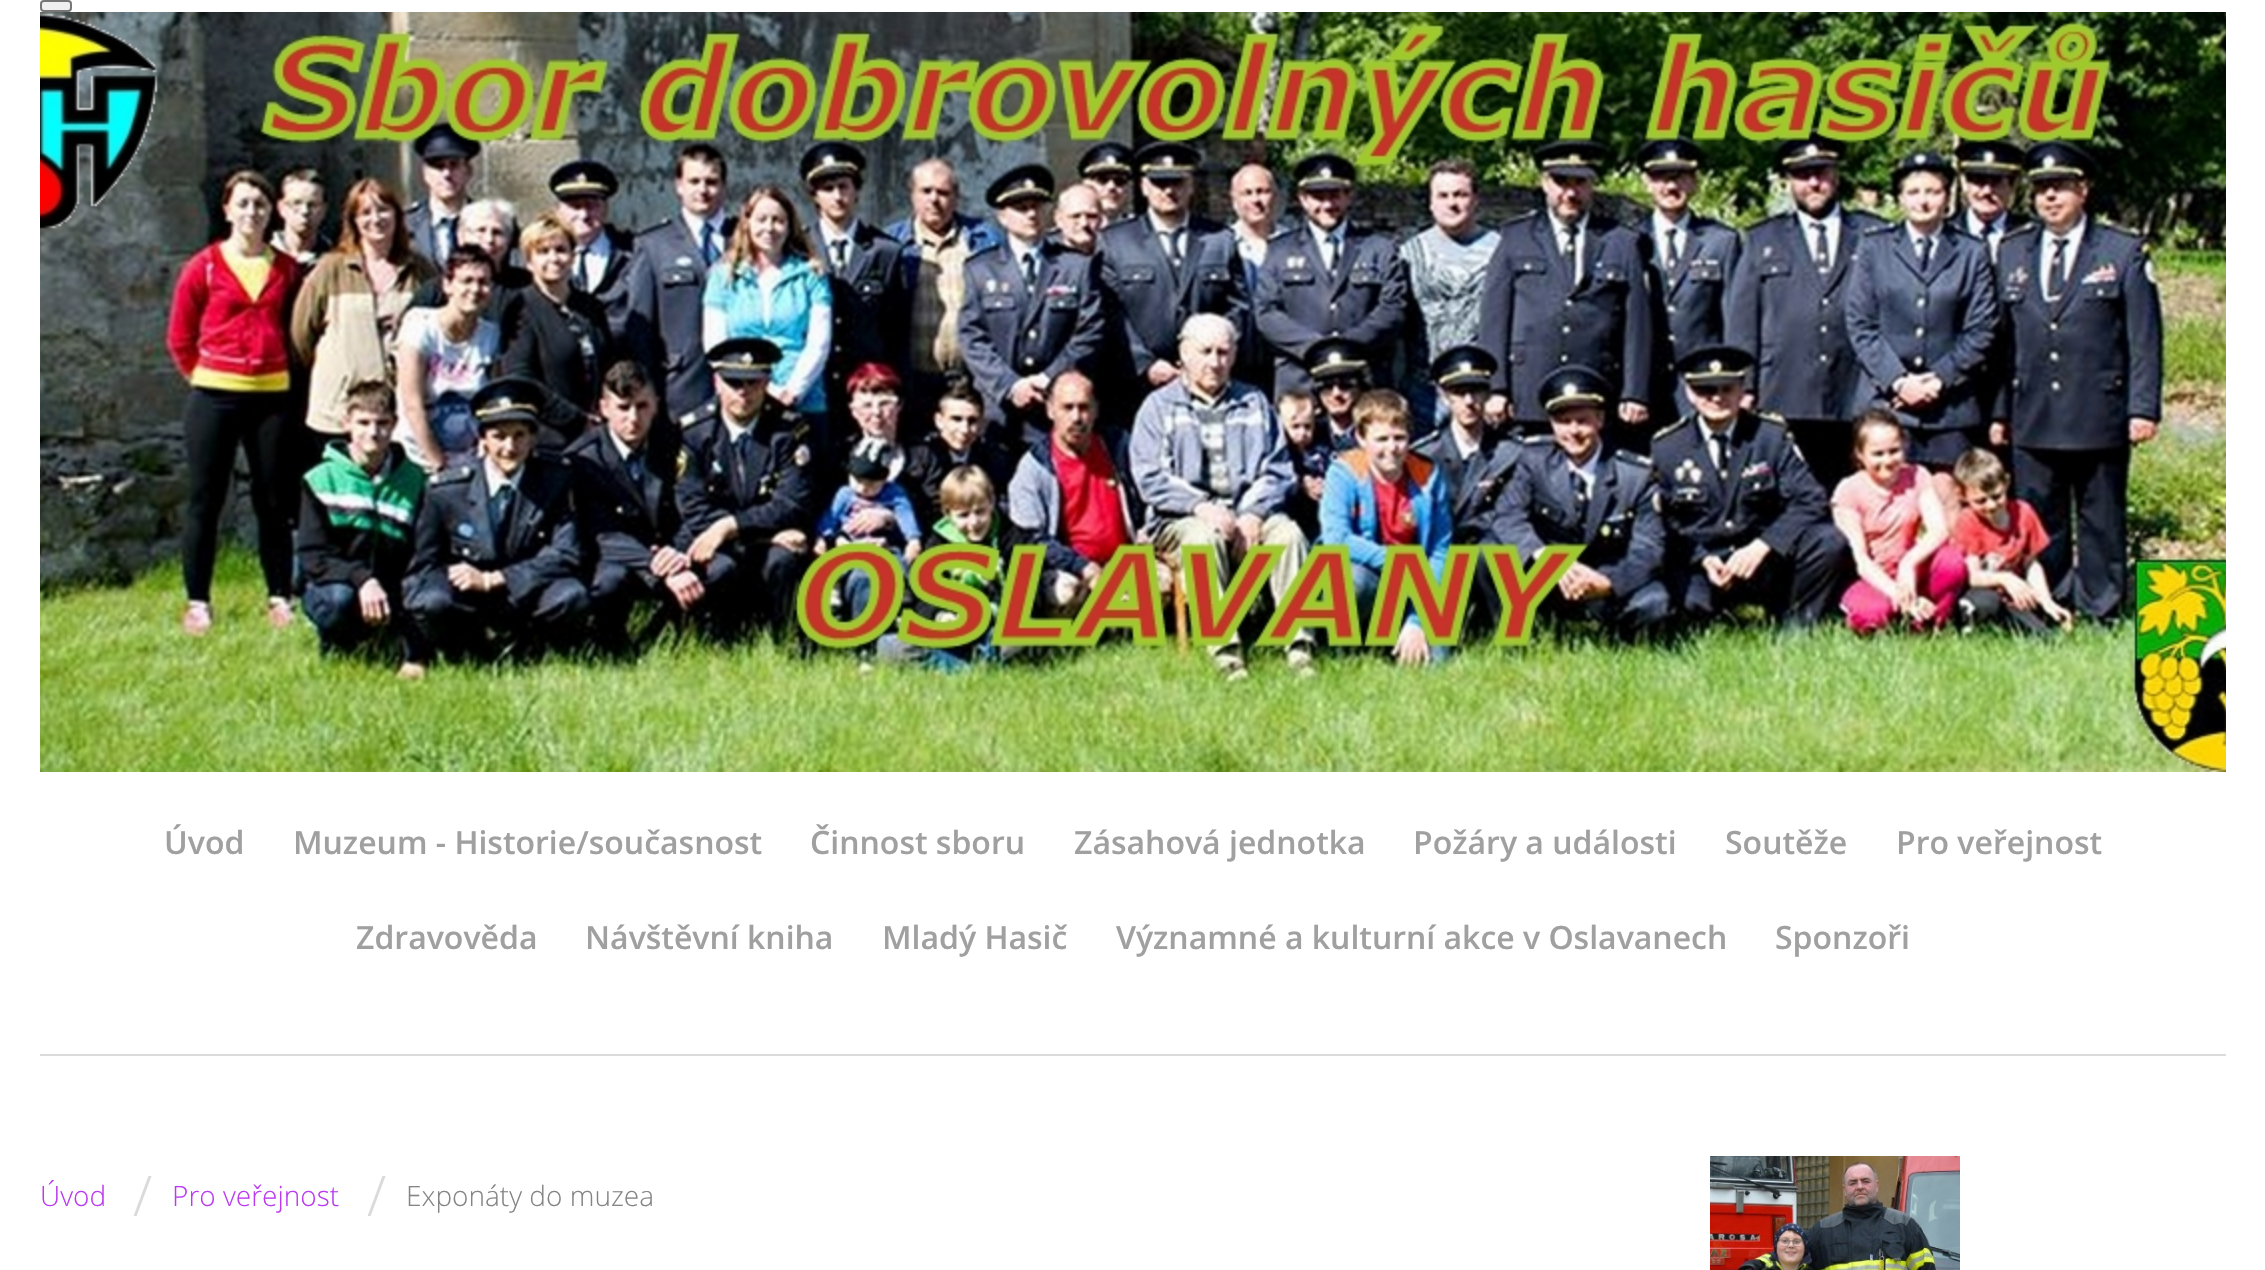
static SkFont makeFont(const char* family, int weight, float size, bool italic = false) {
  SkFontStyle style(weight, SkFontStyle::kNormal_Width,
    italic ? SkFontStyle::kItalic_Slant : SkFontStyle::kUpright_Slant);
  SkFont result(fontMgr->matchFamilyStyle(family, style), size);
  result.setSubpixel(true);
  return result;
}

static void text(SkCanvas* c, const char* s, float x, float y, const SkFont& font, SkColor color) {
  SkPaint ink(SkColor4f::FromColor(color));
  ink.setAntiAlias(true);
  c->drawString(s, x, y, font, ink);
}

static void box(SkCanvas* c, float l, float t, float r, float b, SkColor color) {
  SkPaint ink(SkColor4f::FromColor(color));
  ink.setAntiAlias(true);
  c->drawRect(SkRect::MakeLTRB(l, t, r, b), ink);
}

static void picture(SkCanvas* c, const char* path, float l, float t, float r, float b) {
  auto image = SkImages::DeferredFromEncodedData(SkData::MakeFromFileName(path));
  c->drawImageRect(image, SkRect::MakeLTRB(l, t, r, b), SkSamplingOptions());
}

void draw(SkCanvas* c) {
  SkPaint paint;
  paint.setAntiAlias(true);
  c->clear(0xffffffff);
  paint.setColor(0xffefefef);
  c->drawRoundRect(SkRect::MakeLTRB(41, 1, 71, 11), 3, 3, paint);
  paint.setStyle(SkPaint::kStroke_Style);
  paint.setStrokeWidth(2);
  paint.setColor(0xff767676);
  c->drawRoundRect(SkRect::MakeLTRB(41, 1, 71, 11), 3, 3, paint);
  picture(c, "img_01.png", 40, 12, 2226, 772);
  SkFont face1 = makeFont("Open Sans", 600, 32);
  text(c, "Úvod", 164, 854, face1, 0xffa0a0a0);
  text(c, "Muzeum - Historie/současnost", 293, 854, face1, 0xffa0a0a0);
  text(c, "Činnost sboru", 810, 854, face1, 0xffa0a0a0);
  text(c, "Zásahová jednotka", 1074, 854, face1, 0xffa0a0a0);
  text(c, "Požáry a události", 1413, 854, face1, 0xffa0a0a0);
  text(c, "Soutěže", 1725, 854, face1, 0xffa0a0a0);
  text(c, "Pro veřejnost", 1896, 854, face1, 0xffa0a0a0);
  text(c, "Zdravověda", 356, 949, face1, 0xffa0a0a0);
  text(c, "Návštěvní kniha", 585, 949, face1, 0xffa0a0a0);
  text(c, "Mladý Hasič", 882, 949, face1, 0xffa0a0a0);
  text(c, "Významné a kulturní akce v Oslavanech", 1116, 949, face1, 0xffa0a0a0);
  text(c, "Sponzoři", 1775, 949, face1, 0xffa0a0a0);
  box(c, 40, 1054, 2226, 1056, 0xffdbdbdb);
  SkFont face2 = makeFont("Open Sans", 300, 28);
  text(c, "Úvod", 40, 1206, face2, 0xffbb3af0);
  SkFont face3 = makeFont("Open Sans", 300, 56);
  text(c, "/", 133, 1216, face3, 0xffdadada);
  text(c, "Pro veřejnost", 172, 1206, face2, 0xffbb3af0);
  text(c, "/", 367, 1216, face3, 0xffdadada);
  text(c, "Exponáty do muzea", 406, 1206, face2, 0xff848484);
  picture(c, "img_02.png", 1710, 1156, 1960, 1270);
}
